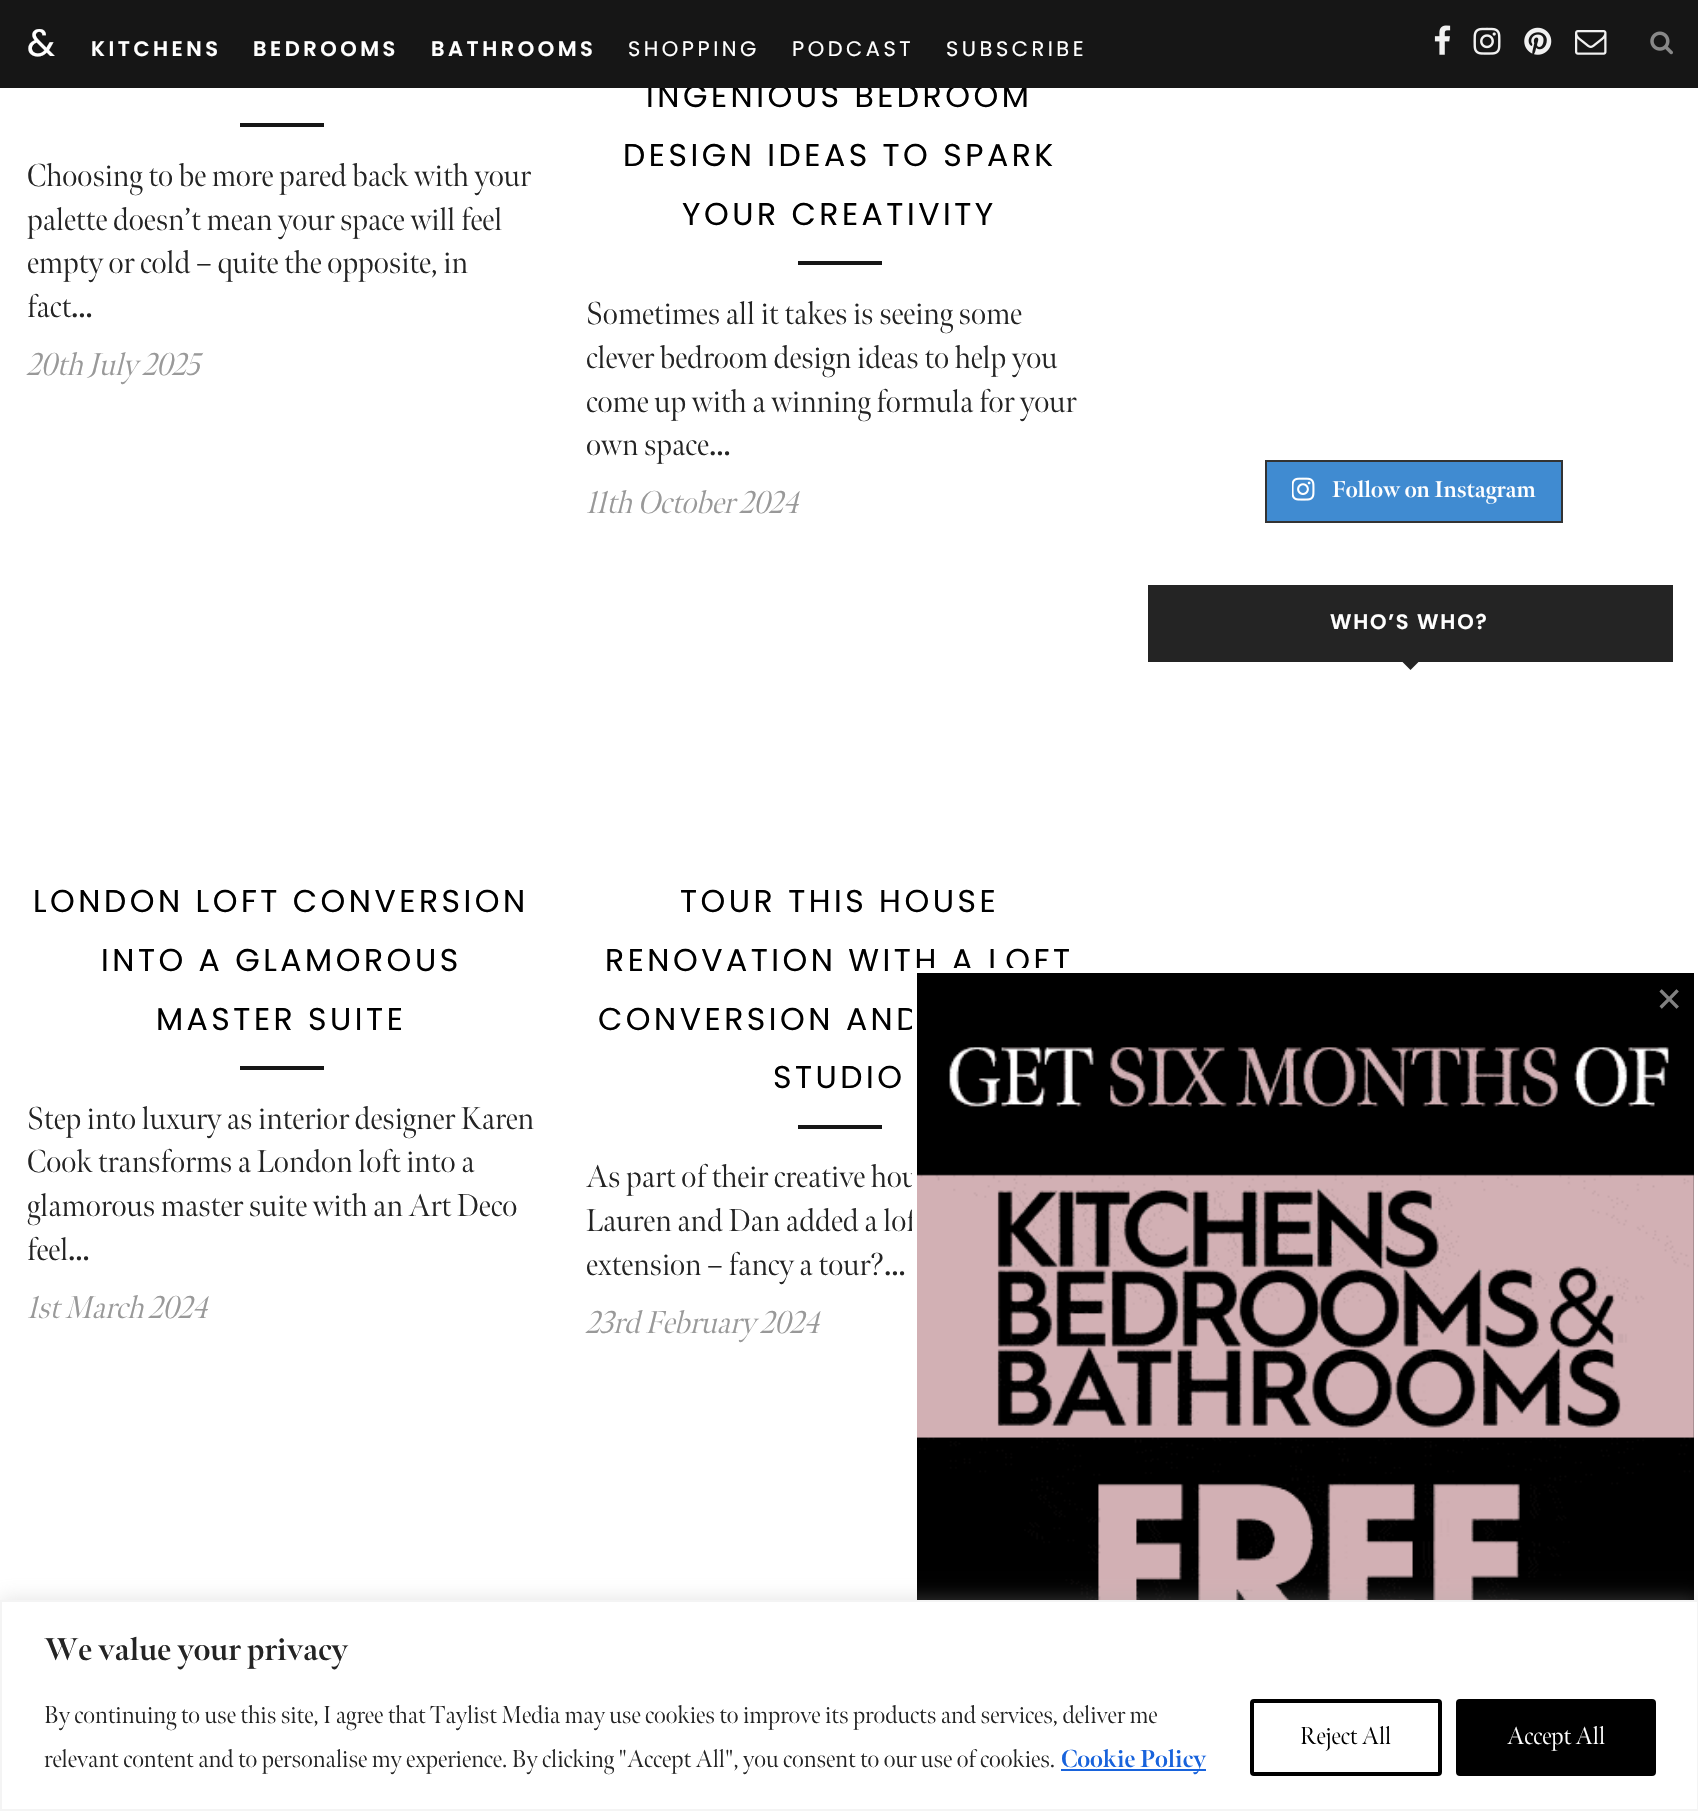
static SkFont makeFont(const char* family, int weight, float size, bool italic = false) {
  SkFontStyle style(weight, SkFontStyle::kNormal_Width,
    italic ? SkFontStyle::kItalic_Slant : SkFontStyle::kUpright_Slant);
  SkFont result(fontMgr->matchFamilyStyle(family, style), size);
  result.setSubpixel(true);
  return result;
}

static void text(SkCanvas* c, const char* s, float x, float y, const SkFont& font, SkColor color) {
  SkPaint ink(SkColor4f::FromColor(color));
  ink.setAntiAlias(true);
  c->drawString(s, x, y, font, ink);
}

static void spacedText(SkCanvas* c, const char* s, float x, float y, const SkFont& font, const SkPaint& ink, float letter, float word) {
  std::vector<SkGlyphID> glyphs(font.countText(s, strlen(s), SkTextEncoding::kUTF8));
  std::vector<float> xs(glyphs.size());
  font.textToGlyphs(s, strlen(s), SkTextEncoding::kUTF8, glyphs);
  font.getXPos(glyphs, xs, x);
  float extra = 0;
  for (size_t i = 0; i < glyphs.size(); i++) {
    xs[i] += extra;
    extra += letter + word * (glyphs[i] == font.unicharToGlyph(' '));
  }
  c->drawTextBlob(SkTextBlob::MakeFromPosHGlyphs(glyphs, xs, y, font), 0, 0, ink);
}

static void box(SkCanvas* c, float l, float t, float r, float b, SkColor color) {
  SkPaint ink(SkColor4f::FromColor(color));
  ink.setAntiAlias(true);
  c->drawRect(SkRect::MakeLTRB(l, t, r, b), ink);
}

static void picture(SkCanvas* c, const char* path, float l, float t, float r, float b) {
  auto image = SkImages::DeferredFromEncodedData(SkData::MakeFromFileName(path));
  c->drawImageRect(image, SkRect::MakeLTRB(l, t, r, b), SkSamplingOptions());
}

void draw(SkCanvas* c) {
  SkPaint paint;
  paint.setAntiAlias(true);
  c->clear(0xffffffff);
  SkFont face1 = makeFont("Poppins", 400, 31.5f);
  paint.setColor(0xff000000);
  spacedText(c, "INGENIOUS BEDROOM", 646, 107, face1, paint, 3.5f, 0);
  box(c, 0, 0, 1698, 88, 0xff161616);
  SkFont face2 = makeFont("Poppins", 400, 38);
  paint.setColor(0xffffffff);
  spacedText(c, "&", 27, 56, face2, paint, 3.5f, 0);
  SkFont face3 = makeFont("Poppins", 600, 21);
  spacedText(c, "KITCHENS", 91, 56, face3, paint, 3.5f, 0);
  spacedText(c, "BEDROOMS", 253, 56, face3, paint, 3.5f, 0);
  spacedText(c, "BATHROOMS", 431, 56, face3, paint, 3.5f, 0);
  SkFont face4 = makeFont("Poppins", 400, 21);
  spacedText(c, "SHOPPING", 628, 56, face4, paint, 3.5f, 0);
  spacedText(c, "PODCAST", 792, 56, face4, paint, 3.5f, 0);
  spacedText(c, "SUBSCRIBE", 946, 56, face4, paint, 3.5f, 0);
  picture(c, "img_01.png", 1434, 25, 1451, 55);
  picture(c, "img_02.png", 1473, 27, 1501, 55);
  picture(c, "img_03.png", 1524, 27, 1552, 55);
  picture(c, "img_04.png", 1575, 30, 1607, 55);
  picture(c, "img_05.png", 1650, 31, 1673, 55);
  box(c, 240, 123, 324, 127, 0xff161616);
  SkFont face5 = makeFont("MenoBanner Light", 300, 31.5f);
  text(c, "Choosing to be more pared back with your", 27, 186, face5, 0xff242424);
  text(c, "palette doesn’t mean your space will feel", 27, 230, face5, 0xff242424);
  text(c, "empty or cold – quite the opposite, in", 27, 273, face5, 0xff242424);
  text(c, "fact", 27, 317, face5, 0xff242424);
  SkFont face6 = makeFont("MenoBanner", 700, 31.5f);
  text(c, "…", 71, 317, face6, 0xff242424);
  SkFont face7 = makeFont("MenoBanner Light", 300, 31.5f, true);
  text(c, "20th July 2025", 27, 375, face7, 0xff999999);
  paint.setColor(0xff000000);
  spacedText(c, "DESIGN IDEAS TO SPARK", 623, 166, face1, paint, 3.5f, 0);
  spacedText(c, "YOUR CREATIVITY", 682, 225, face1, paint, 3.5f, 0);
  box(c, 798, 261, 882, 265, 0xff161616);
  text(c, "Sometimes all it takes is seeing some", 586, 324, face5, 0xff242424);
  text(c, "clever bedroom design ideas to help you", 586, 368, face5, 0xff242424);
  text(c, "come up with a winning formula for your", 586, 412, face5, 0xff242424);
  text(c, "own space", 586, 455, face5, 0xff242424);
  text(c, "…", 709, 455, face6, 0xff242424);
  text(c, "11th October 2024", 586, 513, face7, 0xff999999);
  spacedText(c, "LONDON LOFT CONVERSION", 33, 912, face1, paint, 3.5f, 0);
  spacedText(c, "INTO A GLAMOROUS", 101, 971, face1, paint, 3.5f, 0);
  spacedText(c, "MASTER SUITE", 156, 1030, face1, paint, 3.5f, 0);
  box(c, 240, 1066, 324, 1070, 0xff161616);
  text(c, "Step into luxury as interior designer Karen", 27, 1129, face5, 0xff242424);
  text(c, "Cook transforms a London loft into a", 27, 1172, face5, 0xff242424);
  text(c, "glamorous master suite with an Art Deco", 27, 1216, face5, 0xff242424);
  text(c, "feel", 27, 1260, face5, 0xff242424);
  text(c, "…", 68, 1260, face6, 0xff242424);
  text(c, "1st March 2024", 27, 1318, face7, 0xff999999);
  spacedText(c, "TOUR THIS HOUSE", 680, 912, face1, paint, 3.5f, 0);
  spacedText(c, "RENOVATION WITH A LOFT", 605, 971, face1, paint, 3.5f, 0);
  spacedText(c, "CONVERSION AND", 598, 1030, face1, paint, 3.5f, 0);
  spacedText(c, "STUDIO", 773, 1088, face1, paint, 3.5f, 0);
  box(c, 798, 1125, 882, 1129, 0xff161616);
  text(c, "As part of their creative hou", 586, 1187, face5, 0xff242424);
  text(c, "Lauren and Dan added a lof", 586, 1231, face5, 0xff242424);
  text(c, "extension – fancy a tour?", 586, 1275, face5, 0xff242424);
  text(c, "…", 884, 1275, face6, 0xff242424);
  text(c, "23rd February 2024", 586, 1333, face7, 0xff999999);
  paint.setColor(0xff408bd1);
  c->drawRect(SkRect::MakeLTRB(1266, 461, 1562, 522), paint);
  paint.setStyle(SkPaint::kStroke_Style);
  paint.setStrokeWidth(2);
  paint.setColor(0xff333333);
  c->drawRect(SkRect::MakeLTRB(1266, 461, 1562, 522), paint);
  picture(c, "img_06.png", 1292, 477, 1315, 501);
  SkFont face8 = makeFont("MenoBanner", 700, 22.75f);
  text(c, "Follow on Instagram", 1332, 497, face8, 0xffffffff);
  box(c, 1148, 585, 1673, 662, 0xff242424);
  paint.setStyle(SkPaint::kFill_Style);
  paint.setColor(0xffffffff);
  spacedText(c, "WHO’S WHO?", 1330, 629, face3, paint, 1.75f, 0);
  paint.setColor(0xff242424);
  c->drawPath(SkPathBuilder().moveTo(1402, 661.5f).lineTo(1419, 661.5f).lineTo(1410.5f, 670).close().detach(), paint);
  box(c, 917, 973, 1694, 1600, 0xff000000);
  paint.setStyle(SkPaint::kStroke_Style);
  paint.setStrokeWidth(5);
  paint.setColor(0xffffffff);
  c->drawRect(SkRect::MakeLTRB(914.5f, 970.5f, 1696.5f, 1808.5f), paint);
  SkFont face9 = makeFont("MenoBanner", 700, 49);
  text(c, "×", 1655, 1015, face9, 0xff808080);
  picture(c, "img_07.png", 917, 1047, 1694, 1600);
  paint.setStyle(SkPaint::kFill_Style);
  paint.setColor(0x4dacabab);
  paint.setMaskFilter(SkMaskFilter::MakeBlur(kNormal_SkBlurStyle, 9));
  c->drawRect(SkRect::MakeLTRB(0, 1598, 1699, 1810), paint);
  paint.setMaskFilter(nullptr);
  paint.setColor(0xffffffff);
  c->drawRect(SkRect::MakeLTRB(1, 1601, 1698, 1810), paint);
  paint.setStyle(SkPaint::kStroke_Style);
  paint.setStrokeWidth(2);
  paint.setColor(0xfff4f4f4);
  c->drawRect(SkRect::MakeLTRB(1, 1601, 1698, 1810), paint);
  text(c, "We value your privacy", 44, 1660, face6, 0xff242424);
  SkFont face10 = makeFont("MenoBanner Light", 300, 24.5f);
  text(c, "By continuing to use this site, I agree that Taylist Media may use cookies to improve its products and services, deliver me", 44, 1723, face10, 0xff242424);
  text(c, "relevant content and to personalise my experience. By clicking \"Accept All\", you consent to our use of cookies.", 44, 1767, face10, 0xff242424);
  box(c, 1061, 1769, 1206, 1771, 0xff1863dc);
  SkFont face11 = makeFont("MenoBanner", 700, 24.5f);
  text(c, "Cookie Policy", 1061, 1767, face11, 0xff1863dc);
  paint.setStrokeWidth(4);
  paint.setColor(0xff000000);
  c->drawRoundRect(SkRect::MakeLTRB(1252, 1701, 1440, 1774), 2, 2, paint);
  text(c, "Reject All", 1300, 1744, face10, 0xff000000);
  paint.setStyle(SkPaint::kFill_Style);
  c->drawRoundRect(SkRect::MakeLTRB(1458, 1701, 1654, 1774), 2, 2, paint);
  paint.setStyle(SkPaint::kStroke_Style);
  c->drawRoundRect(SkRect::MakeLTRB(1458, 1701, 1654, 1774), 2, 2, paint);
  text(c, "Accept All", 1507, 1744, face10, 0xffffffff);
}
